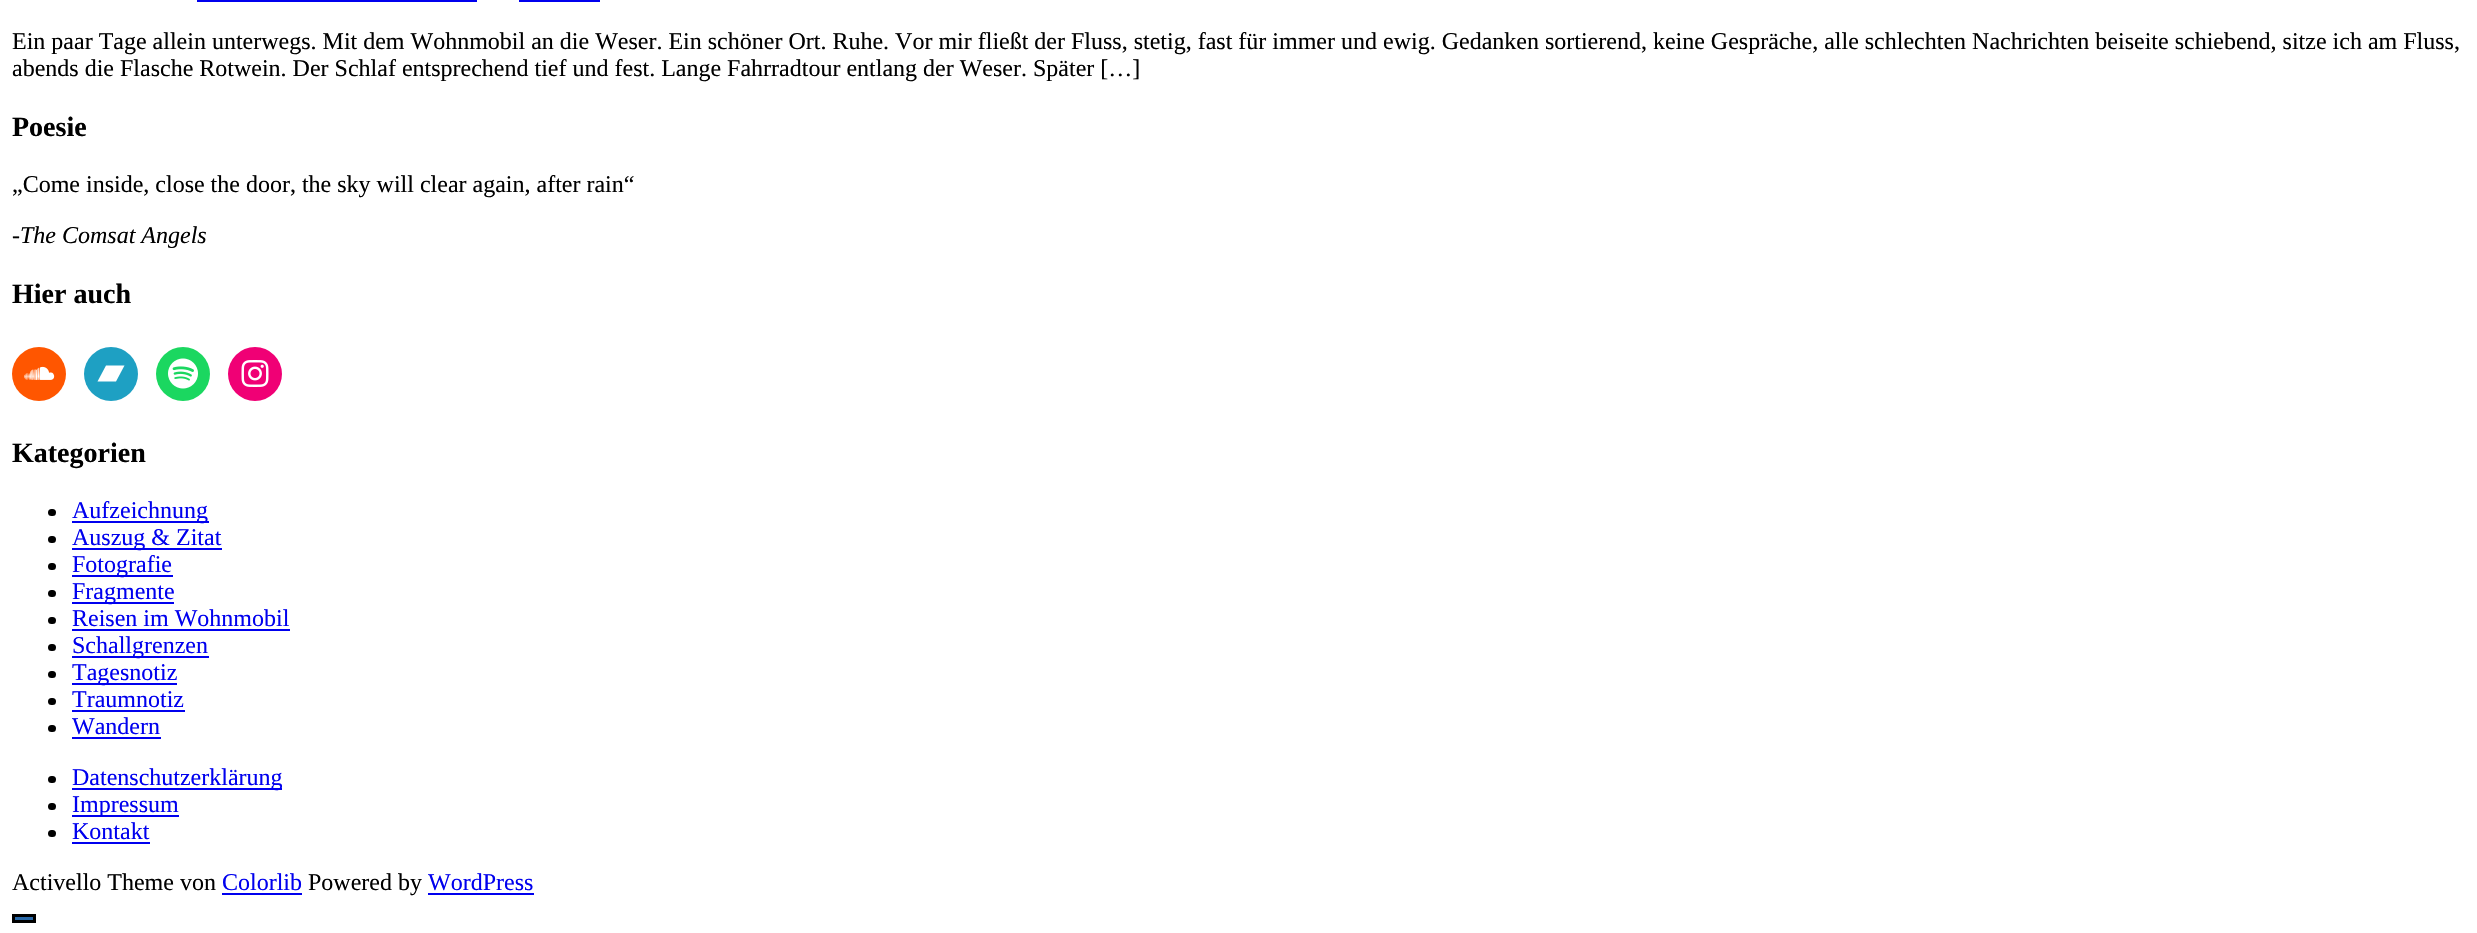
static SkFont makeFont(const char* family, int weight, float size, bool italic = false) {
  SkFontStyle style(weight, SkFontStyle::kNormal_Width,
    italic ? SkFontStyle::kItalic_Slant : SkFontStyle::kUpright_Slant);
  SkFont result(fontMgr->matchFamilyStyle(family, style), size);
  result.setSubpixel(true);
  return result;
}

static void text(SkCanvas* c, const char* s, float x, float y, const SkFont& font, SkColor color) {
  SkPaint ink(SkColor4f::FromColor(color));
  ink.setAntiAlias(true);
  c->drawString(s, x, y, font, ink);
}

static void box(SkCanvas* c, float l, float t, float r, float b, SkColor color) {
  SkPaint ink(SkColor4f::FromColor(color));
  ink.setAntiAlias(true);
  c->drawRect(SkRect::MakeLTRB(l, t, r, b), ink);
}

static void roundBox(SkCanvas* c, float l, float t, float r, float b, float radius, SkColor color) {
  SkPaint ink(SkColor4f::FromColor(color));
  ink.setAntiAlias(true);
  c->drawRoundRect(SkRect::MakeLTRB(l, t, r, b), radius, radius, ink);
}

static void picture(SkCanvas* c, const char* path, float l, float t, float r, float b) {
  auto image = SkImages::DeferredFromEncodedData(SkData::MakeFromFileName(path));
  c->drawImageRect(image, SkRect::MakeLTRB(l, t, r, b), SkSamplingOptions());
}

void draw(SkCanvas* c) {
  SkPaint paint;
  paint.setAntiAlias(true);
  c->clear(0xffffffff);
  box(c, 197, 0, 477, 2, 0xff0000ee);
  box(c, 519, 0, 600, 2, 0xff0000ee);
  SkFont face1 = makeFont("Liberation Serif", 400, 24);
  text(c, "Ein paar Tage allein unterwegs. Mit dem Wohnmobil an die Weser. Ein schöner Ort. Ruhe. Vor mir fließt der Fluss, stetig, fast für immer und ewig. Gedanken sortierend, keine Gespräche, alle schlechten Nachrichten beiseite schiebend, sitze ich am Fluss,", 12, 49, face1, 0xff000000);
  text(c, "abends die Flasche Rotwein. Der Schlaf entsprechend tief und fest. Lange Fahrradtour entlang der Weser. Später […]", 12, 76, face1, 0xff000000);
  SkFont face2 = makeFont("Liberation Serif", 700, 28);
  text(c, "Poesie", 12, 136, face2, 0xff000000);
  text(c, "„Come inside, close the door, the sky will clear again, after rain“", 12, 192, face1, 0xff000000);
  SkFont face3 = makeFont("Liberation Serif", 400, 24, true);
  text(c, "-The Comsat Angels", 12, 243, face3, 0xff000000);
  text(c, "Hier auch", 12, 303, face2, 0xff000000);
  paint.setColor(0xffff5600);
  c->drawCircle(39, 374, 27, paint);
  picture(c, "img_01.png", 24, 366, 55, 380);
  paint.setColor(0xff1ea0c3);
  c->drawCircle(111, 374, 27, paint);
  paint.setColor(0xffffffff);
  c->drawPath(SkPathBuilder().moveTo(116, 381.5f).lineTo(97.5f, 381.5f).lineTo(106, 365.5f).lineTo(124.5f, 365.5f).lineTo(116, 381.5f).detach(), paint);
  paint.setColor(0xff1bd760);
  c->drawCircle(183, 374, 27, paint);
  picture(c, "img_02.png", 168, 358, 198, 389);
  paint.setColor(0xfff00075);
  c->drawCircle(255, 374, 27, paint);
  picture(c, "img_03.png", 241, 360, 269, 387);
  text(c, "Kategorien", 12, 462, face2, 0xff000000);
  roundBox(c, 48, 509, 56, 516, 3.5f, 0xff000000);
  box(c, 72, 521, 209, 523, 0xff0000ee);
  text(c, "Aufzeichnung", 72, 518, face1, 0xff0000ee);
  roundBox(c, 48, 536, 56, 543, 3.5f, 0xff000000);
  box(c, 72, 548, 222, 550, 0xff0000ee);
  text(c, "Auszug & Zitat", 72, 545, face1, 0xff0000ee);
  roundBox(c, 48, 563, 56, 570, 3.5f, 0xff000000);
  box(c, 72, 575, 173, 577, 0xff0000ee);
  text(c, "Fotografie", 72, 572, face1, 0xff0000ee);
  roundBox(c, 48, 590, 56, 597, 3.5f, 0xff000000);
  box(c, 72, 602, 174, 604, 0xff0000ee);
  text(c, "Fragmente", 72, 599, face1, 0xff0000ee);
  roundBox(c, 48, 617, 56, 624, 3.5f, 0xff000000);
  text(c, "Reisen im Wohnmobil", 72, 626, face1, 0xff0000ee);
  box(c, 72, 629, 290, 631, 0xff0000ee);
  roundBox(c, 48, 644, 56, 651, 3.5f, 0xff000000);
  box(c, 72, 656, 209, 658, 0xff0000ee);
  text(c, "Schallgrenzen", 72, 653, face1, 0xff0000ee);
  roundBox(c, 48, 671, 56, 678, 3.5f, 0xff000000);
  box(c, 72, 683, 177, 685, 0xff0000ee);
  text(c, "Tagesnotiz", 72, 680, face1, 0xff0000ee);
  roundBox(c, 48, 698, 56, 705, 3.5f, 0xff000000);
  text(c, "Traumnotiz", 72, 707, face1, 0xff0000ee);
  box(c, 72, 710, 185, 712, 0xff0000ee);
  roundBox(c, 48, 725, 56, 732, 3.5f, 0xff000000);
  text(c, "Wandern", 72, 734, face1, 0xff0000ee);
  box(c, 72, 737, 161, 739, 0xff0000ee);
  roundBox(c, 48, 776, 56, 783, 3.5f, 0xff000000);
  box(c, 72, 788, 282, 790, 0xff0000ee);
  text(c, "Datenschutzerklärung", 72, 785, face1, 0xff0000ee);
  roundBox(c, 48, 803, 56, 810, 3.5f, 0xff000000);
  box(c, 72, 815, 179, 817, 0xff0000ee);
  text(c, "Impressum", 72, 812, face1, 0xff0000ee);
  roundBox(c, 48, 830, 56, 837, 3.5f, 0xff000000);
  text(c, "Kontakt", 72, 839, face1, 0xff0000ee);
  box(c, 72, 842, 150, 844, 0xff0000ee);
  text(c, "Activello Theme von", 12, 890, face1, 0xff000000);
  text(c, "Colorlib", 222, 890, face1, 0xff0000ee);
  box(c, 222, 893, 302, 895, 0xff0000ee);
  text(c, "Powered by", 308, 890, face1, 0xff000000);
  text(c, "WordPress", 428, 890, face1, 0xff0000ee);
  box(c, 428, 893, 534, 895, 0xff0000ee);
  paint.setColor(0xff2a6aaa);
  c->drawRect(SkRect::MakeLTRB(13.5f, 915.5f, 34.5f, 921.5f), paint);
  paint.setStyle(SkPaint::kStroke_Style);
  paint.setStrokeWidth(3);
  paint.setColor(0xff000000);
  c->drawRect(SkRect::MakeLTRB(13.5f, 915.5f, 34.5f, 921.5f), paint);
}
